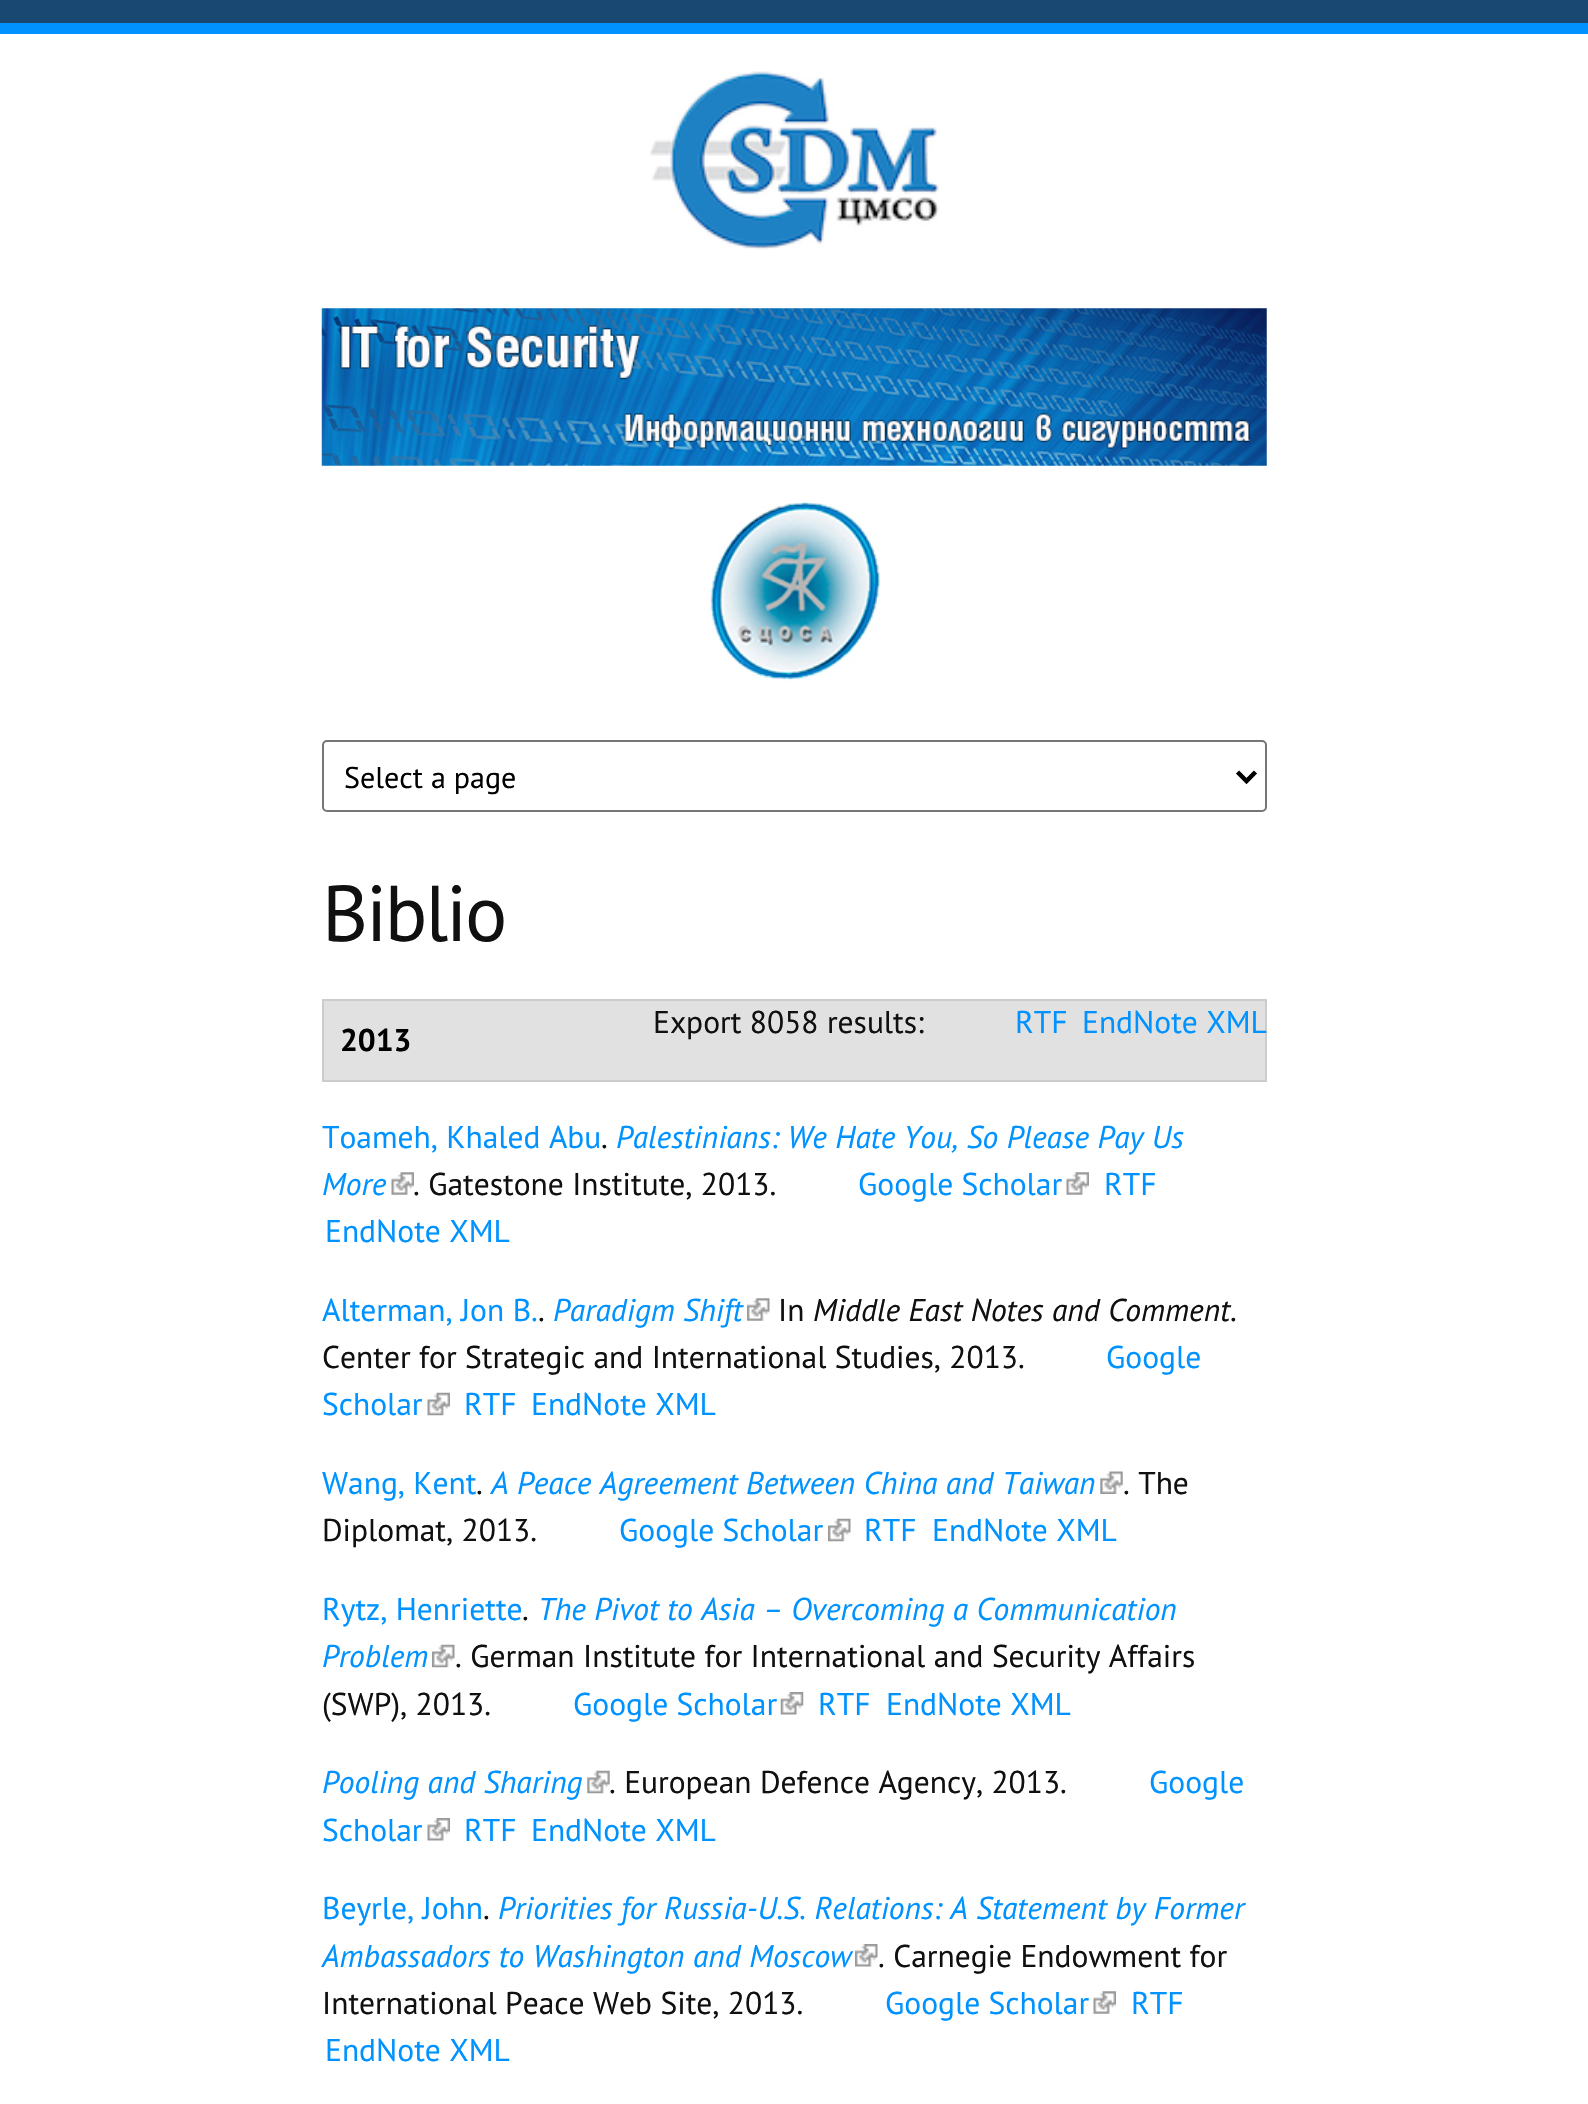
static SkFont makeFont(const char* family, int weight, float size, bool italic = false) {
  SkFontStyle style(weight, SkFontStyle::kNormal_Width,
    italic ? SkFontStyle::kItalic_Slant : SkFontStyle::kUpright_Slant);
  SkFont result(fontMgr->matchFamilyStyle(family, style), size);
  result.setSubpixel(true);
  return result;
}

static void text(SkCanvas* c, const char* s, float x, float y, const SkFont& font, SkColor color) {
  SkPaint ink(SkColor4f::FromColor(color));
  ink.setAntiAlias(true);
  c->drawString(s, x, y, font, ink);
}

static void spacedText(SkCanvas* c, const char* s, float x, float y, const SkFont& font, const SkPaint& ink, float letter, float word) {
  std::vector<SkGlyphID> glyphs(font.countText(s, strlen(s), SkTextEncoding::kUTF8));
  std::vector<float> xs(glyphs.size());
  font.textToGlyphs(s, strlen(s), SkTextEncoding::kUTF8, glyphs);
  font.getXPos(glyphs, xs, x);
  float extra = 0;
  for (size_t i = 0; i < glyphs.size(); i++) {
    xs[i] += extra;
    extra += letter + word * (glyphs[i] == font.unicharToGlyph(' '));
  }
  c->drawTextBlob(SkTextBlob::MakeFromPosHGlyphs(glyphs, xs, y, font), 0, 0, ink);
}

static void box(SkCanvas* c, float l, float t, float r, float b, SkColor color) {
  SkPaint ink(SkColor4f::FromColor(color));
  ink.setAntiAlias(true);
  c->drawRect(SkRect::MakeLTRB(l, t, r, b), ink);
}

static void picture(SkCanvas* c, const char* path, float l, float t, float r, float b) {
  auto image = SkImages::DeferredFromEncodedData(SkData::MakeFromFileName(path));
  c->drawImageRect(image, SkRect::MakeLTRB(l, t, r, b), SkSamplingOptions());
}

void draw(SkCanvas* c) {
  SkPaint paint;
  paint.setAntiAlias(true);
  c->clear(0xffffffff);
  box(c, 0, 0, 1588, 23, 0xff194973);
  box(c, 0, 23, 1588, 34, 0xff0093ff);
  picture(c, "img_01.png", 650, 71, 939, 250);
  picture(c, "img_02.png", 321, 308, 1267, 466);
  picture(c, "img_03.png", 710, 501, 880, 681);
  paint.setStyle(SkPaint::kStroke_Style);
  paint.setStrokeWidth(2);
  paint.setColor(0xff767676);
  c->drawRoundRect(SkRect::MakeLTRB(323, 741, 1266, 811), 4, 4, paint);
  paint.setStrokeWidth(4.5f);
  paint.setColor(0xff000000);
  c->drawPath(SkPathBuilder().moveTo(1237.5f, 772).lineTo(1246.5f, 781).lineTo(1255.5f, 772).detach(), paint);
  SkFont face1 = makeFont("PT Sans", 400, 30);
  text(c, "Select a page", 344, 788, face1, 0xff000000);
  SkFont face2 = makeFont("PT Sans", 400, 79);
  paint.setStyle(SkPaint::kFill_Style);
  paint.setColor(0xff101010);
  spacedText(c, "Biblio", 322, 941, face2, paint, -2.25f, 0);
  paint.setColor(0xffe1e1e1);
  c->drawRect(SkRect::MakeLTRB(323, 1000, 1266, 1081), paint);
  paint.setStyle(SkPaint::kStroke_Style);
  paint.setStrokeWidth(2);
  paint.setColor(0xffcccccc);
  c->drawRect(SkRect::MakeLTRB(323, 1000, 1266, 1081), paint);
  SkFont face3 = makeFont("PT Sans", 400, 31.5f);
  text(c, "Export 8058 results:", 653, 1033, face3, 0xff101010);
  text(c, "RTF", 1015, 1033, face3, 0xff0092ff);
  text(c, "EndNote XML", 1082, 1033, face3, 0xff0092ff);
  SkFont face4 = makeFont("PT Sans", 700, 31.5f);
  text(c, "2013", 340, 1051, face4, 0xff000000);
  text(c, "Toameh, Khaled Abu", 322, 1148, face3, 0xff0092ff);
  text(c, ".", 601, 1148, face3, 0xff101010);
  SkFont face5 = makeFont("PT Sans", 400, 31.5f, true);
  text(c, "Palestinians: We Hate You, So Please Pay Us", 616, 1148, face5, 0xff0092ff);
  text(c, "More", 322, 1195, face5, 0xff0092ff);
  picture(c, "img_04.png", 391, 1172, 414, 1195);
  text(c, ". Gatestone Institute, 2013.", 413, 1195, face3, 0xff101010);
  text(c, "Google Scholar", 858, 1195, face3, 0xff0092ff);
  picture(c, "img_04.png", 1066, 1172, 1089, 1195);
  text(c, "RTF", 1104, 1195, face3, 0xff0092ff);
  text(c, "EndNote XML", 325, 1242, face3, 0xff0092ff);
  text(c, "Alterman, Jon B.", 322, 1321, face3, 0xff0092ff);
  text(c, ".", 538, 1321, face3, 0xff101010);
  text(c, "Paradigm Shift", 553, 1321, face5, 0xff0092ff);
  picture(c, "img_05.png", 747, 1298, 770, 1321);
  text(c, "In", 778, 1321, face3, 0xff101010);
  text(c, "Middle East Notes and Comment", 813, 1321, face5, 0xff101010);
  text(c, ".", 1230, 1321, face3, 0xff101010);
  text(c, "Center for Strategic and International Studies, 2013.", 322, 1368, face3, 0xff101010);
  text(c, "Google", 1106, 1368, face3, 0xff0092ff);
  text(c, "Scholar", 322, 1415, face3, 0xff0092ff);
  picture(c, "img_06.png", 427, 1392, 450, 1416);
  text(c, "RTF", 464, 1415, face3, 0xff0092ff);
  text(c, "EndNote XML", 531, 1415, face3, 0xff0092ff);
  text(c, "Wang, Kent", 322, 1494, face3, 0xff0092ff);
  text(c, ".", 476, 1494, face3, 0xff101010);
  text(c, "A Peace Agreement Between China and Taiwan", 491, 1494, face5, 0xff0092ff);
  picture(c, "img_07.png", 1100, 1471, 1123, 1494);
  text(c, ". The", 1123, 1494, face3, 0xff101010);
  text(c, "Diplomat, 2013.", 322, 1541, face3, 0xff101010);
  text(c, "Google Scholar", 619, 1541, face3, 0xff0092ff);
  picture(c, "img_08.png", 828, 1518, 851, 1542);
  text(c, "RTF", 864, 1541, face3, 0xff0092ff);
  text(c, "EndNote XML", 932, 1541, face3, 0xff0092ff);
  text(c, "Rytz, Henriette", 322, 1620, face3, 0xff0092ff);
  text(c, ".", 522, 1620, face3, 0xff101010);
  text(c, "The Pivot to Asia – Overcoming a Communication", 538, 1620, face5, 0xff0092ff);
  text(c, "Problem", 322, 1667, face5, 0xff0092ff);
  picture(c, "img_08.png", 432, 1644, 455, 1668);
  text(c, ". German Institute for International and Security Affairs", 455, 1667, face3, 0xff101010);
  text(c, "(SWP), 2013.", 322, 1715, face3, 0xff101010);
  text(c, "Google Scholar", 573, 1715, face3, 0xff0092ff);
  picture(c, "img_09.png", 780, 1692, 804, 1715);
  text(c, "RTF", 818, 1715, face3, 0xff0092ff);
  text(c, "EndNote XML", 886, 1715, face3, 0xff0092ff);
  text(c, "Pooling and Sharing", 322, 1793, face5, 0xff0092ff);
  picture(c, "img_10.png", 587, 1770, 610, 1794);
  text(c, ". European Defence Agency, 2013.", 609, 1793, face3, 0xff101010);
  text(c, "Google", 1149, 1793, face3, 0xff0092ff);
  text(c, "Scholar", 322, 1841, face3, 0xff0092ff);
  picture(c, "img_11.png", 427, 1818, 450, 1841);
  text(c, "RTF", 464, 1841, face3, 0xff0092ff);
  text(c, "EndNote XML", 531, 1841, face3, 0xff0092ff);
  text(c, "Beyrle, John", 322, 1919, face3, 0xff0092ff);
  text(c, ".", 483, 1919, face3, 0xff101010);
  text(c, "Priorities for Russia-U.S. Relations: A Statement by Former", 498, 1919, face5, 0xff0092ff);
  text(c, "Ambassadors to Washington and Moscow", 322, 1967, face5, 0xff0092ff);
  picture(c, "img_12.png", 855, 1944, 878, 1967);
  text(c, ". Carnegie Endowment for", 878, 1967, face3, 0xff101010);
  text(c, "International Peace Web Site, 2013.", 322, 2014, face3, 0xff101010);
  text(c, "Google Scholar", 885, 2014, face3, 0xff0092ff);
  picture(c, "img_13.png", 1093, 1991, 1116, 2014);
  text(c, "RTF", 1131, 2014, face3, 0xff0092ff);
  text(c, "EndNote XML", 325, 2061, face3, 0xff0092ff);
}
